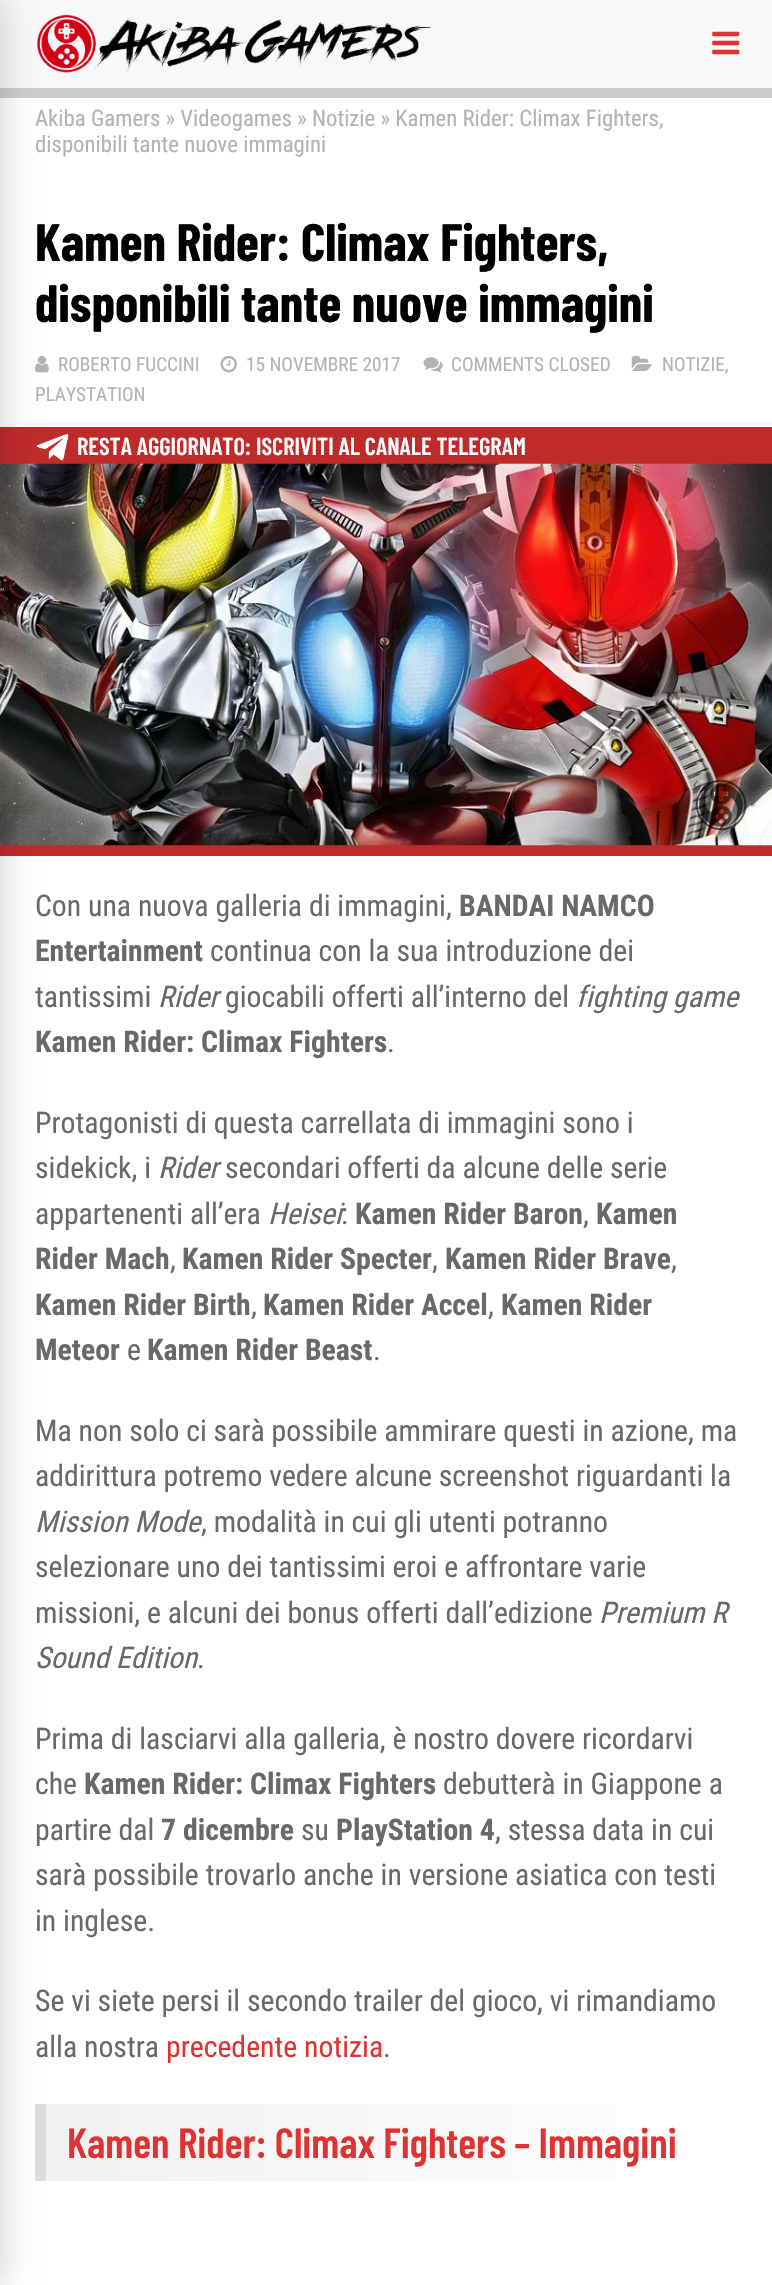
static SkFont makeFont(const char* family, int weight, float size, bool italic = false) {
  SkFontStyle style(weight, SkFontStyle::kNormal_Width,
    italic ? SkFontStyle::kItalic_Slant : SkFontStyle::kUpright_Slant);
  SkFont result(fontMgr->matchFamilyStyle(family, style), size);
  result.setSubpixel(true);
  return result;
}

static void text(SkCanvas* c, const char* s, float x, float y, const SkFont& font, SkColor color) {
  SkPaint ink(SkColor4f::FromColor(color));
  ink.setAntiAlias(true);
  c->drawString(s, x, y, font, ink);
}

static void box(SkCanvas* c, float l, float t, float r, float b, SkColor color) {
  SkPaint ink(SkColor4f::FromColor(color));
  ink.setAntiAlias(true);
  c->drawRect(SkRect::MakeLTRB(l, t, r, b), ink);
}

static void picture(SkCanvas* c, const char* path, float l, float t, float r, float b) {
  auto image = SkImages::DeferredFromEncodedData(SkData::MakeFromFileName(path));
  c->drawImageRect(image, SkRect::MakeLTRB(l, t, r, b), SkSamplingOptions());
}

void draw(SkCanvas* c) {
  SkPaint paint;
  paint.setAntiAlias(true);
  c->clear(0xffffffff);
  box(c, 0, 0, 772, 88, 0xfff8f8f8);
  picture(c, "img_01.png", 36, 14, 431, 73);
  box(c, 0, 88, 772, 98, 0xffcccccc);
  picture(c, "img_03.png", 35, 355, 49, 373);
  box(c, 0, 427, 772, 464, 0xffbf2b2b);
  picture(c, "img_07.png", 36, 434, 69, 461);
  box(c, 0, 845, 772, 856, 0xffbf2b2b);
  picture(c, "img_08.png", 0, 463, 772, 846);
  {
    const SkColor colors[] = {0xfff1f1f1, 0xffffffff};
    const float stops[] = {0, 1};
    const SkPoint ends[] = {{46, 2142}, {739, 2142}};
    paint.setShader(SkGradientShader::MakeLinear(ends, colors, stops, 2, SkTileMode::kClamp));
    paint.setAlpha(255);
  }
  c->drawRect(SkRect::MakeLTRB(46, 2104, 615, 2181), paint);
  box(c, 35, 2104, 46, 2181, 0xffdedddd);
  paint.setShader(nullptr);
  paint.setColor(0x33000000);
  paint.setMaskFilter(SkMaskFilter::MakeBlur(kNormal_SkBlurStyle, 17.5f));
  c->drawRect(SkRect::MakeLTRB(-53, 0, 0, 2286), paint);
  paint.setMaskFilter(nullptr);
  picture(c, "img_02.png", 712, 31, 740, 55);
  SkFont face1 = makeFont("Roboto Condensed", 400, 22.75f);
  text(c, "Akiba Gamers » Videogames » Notizie » Kamen Rider: Climax Fighters,", 35, 126, face1, 0xffb3b3b1);
  text(c, "disponibili tante nuove immagini", 35, 152, face1, 0xffb3b3b1);
  SkFont face2 = makeFont("Barlow Condensed", 700, 52.5f);
  text(c, "Kamen Rider: Climax Fighters,", 35, 261, face2, 0xff000000);
  text(c, "disponibili tante nuove immagini", 35, 322, face2, 0xff000000);
  SkFont face3 = makeFont("Roboto Condensed", 400, 19.25f);
  text(c, "ROBERTO FUCCINI", 58, 371, face3, 0xffb3b3b1);
  picture(c, "img_04.png", 220, 355, 237, 373);
  text(c, "15 NOVEMBRE 2017", 246, 371, face3, 0xffb3b3b1);
  picture(c, "img_05.png", 423, 357, 443, 373);
  text(c, "COMMENTS CLOSED", 451, 371, face3, 0xffb3b3b1);
  picture(c, "img_06.png", 631, 355, 652, 371);
  text(c, "NOTIZIE,", 662, 371, face3, 0xffb3b3b1);
  text(c, "PLAYSTATION", 35, 401, face3, 0xffb3b3b1);
  SkFont face4 = makeFont("Barlow Condensed", 600, 24.5f);
  text(c, "RESTA AGGIORNATO: ISCRIVITI AL CANALE TELEGRAM", 77, 455, face4, 0xffffffff);
  picture(c, "img_09.png", 695, 779, 747, 831);
  SkFont face5 = makeFont("Roboto Condensed", 400, 29.75f);
  text(c, "Con una nuova galleria di immagini,", 35, 916, face5, 0xff696969);
  SkFont face6 = makeFont("Roboto Condensed", 700, 29.75f);
  text(c, "BANDAI NAMCO", 459, 916, face6, 0xff696969);
  text(c, "Entertainment", 35, 961, face6, 0xff696969);
  text(c, "continua con la sua introduzione dei", 210, 961, face5, 0xff696969);
  text(c, "tantissimi", 35, 1007, face5, 0xff696969);
  SkFont face7 = makeFont("Roboto Condensed", 400, 29.75f, true);
  text(c, "Rider", 158, 1007, face7, 0xff696969);
  text(c, "giocabili offerti all’interno del", 225, 1007, face5, 0xff696969);
  text(c, "fighting game", 576, 1007, face7, 0xff696969);
  text(c, "Kamen Rider: Climax Fighters", 35, 1052, face6, 0xff696969);
  text(c, ".", 387, 1052, face5, 0xff696969);
  text(c, "Protagonisti di questa carrellata di immagini sono i", 35, 1133, face5, 0xff696969);
  text(c, "sidekick, i", 35, 1178, face5, 0xff696969);
  text(c, "Rider", 158, 1178, face7, 0xff696969);
  text(c, "secondari offerti da alcune delle serie", 225, 1178, face5, 0xff696969);
  text(c, "appartenenti all’era", 35, 1224, face5, 0xff696969);
  text(c, "Heisei", 268, 1224, face7, 0xff696969);
  text(c, "Kamen Rider Baron", 355, 1224, face6, 0xff696969);
  text(c, "Kamen", 596, 1224, face6, 0xff696969);
  text(c, ":", 341, 1224, face5, 0xff696969);
  text(c, ",", 583, 1224, face5, 0xff696969);
  text(c, "Rider Mach", 35, 1269, face6, 0xff696969);
  text(c, ",", 170, 1269, face5, 0xff696969);
  text(c, "Kamen Rider Specter", 182, 1269, face6, 0xff696969);
  text(c, ",", 432, 1269, face5, 0xff696969);
  text(c, "Kamen Rider Brave", 445, 1269, face6, 0xff696969);
  text(c, ",", 671, 1269, face5, 0xff696969);
  text(c, "Kamen Rider Birth", 35, 1315, face6, 0xff696969);
  text(c, ",", 251, 1315, face5, 0xff696969);
  text(c, "Kamen Rider Accel", 263, 1315, face6, 0xff696969);
  text(c, ",", 488, 1315, face5, 0xff696969);
  text(c, "Kamen Rider", 501, 1315, face6, 0xff696969);
  text(c, "Meteor", 35, 1360, face6, 0xff696969);
  text(c, "e", 127, 1360, face5, 0xff696969);
  text(c, "Kamen Rider Beast", 147, 1360, face6, 0xff696969);
  text(c, ".", 373, 1360, face5, 0xff696969);
  text(c, "Ma non solo ci sarà possibile ammirare questi in azione, ma", 35, 1441, face5, 0xff696969);
  text(c, "addirittura potremo vedere alcune screenshot riguardanti la", 35, 1486, face5, 0xff696969);
  text(c, "Mission Mode", 35, 1532, face7, 0xff696969);
  text(c, ", modalità in cui gli utenti potranno", 201, 1532, face5, 0xff696969);
  text(c, "selezionare uno dei tantissimi eroi e affrontare varie", 35, 1577, face5, 0xff696969);
  text(c, "missioni, e alcuni dei bonus offerti dall’edizione", 35, 1623, face5, 0xff696969);
  text(c, "Premium R", 599, 1623, face7, 0xff696969);
  text(c, "Sound Edition", 35, 1668, face7, 0xff696969);
  text(c, ".", 197, 1668, face5, 0xff696969);
  text(c, "Prima di lasciarvi alla galleria, è nostro dovere ricordarvi", 35, 1749, face5, 0xff696969);
  text(c, "che", 35, 1794, face5, 0xff696969);
  text(c, "Kamen Rider: Climax Fighters", 84, 1794, face6, 0xff696969);
  text(c, "debutterà in Giappone a", 443, 1794, face5, 0xff696969);
  text(c, "partire dal", 35, 1840, face5, 0xff696969);
  text(c, "7 dicembre", 161, 1840, face6, 0xff696969);
  text(c, "su", 301, 1840, face5, 0xff696969);
  text(c, "PlayStation 4", 336, 1840, face6, 0xff696969);
  text(c, ", stessa data in cui", 495, 1840, face5, 0xff696969);
  text(c, "sarà possibile trovarlo anche in versione asiatica con testi", 35, 1885, face5, 0xff696969);
  text(c, "in inglese.", 35, 1931, face5, 0xff696969);
  text(c, "Se vi siete persi il secondo trailer del gioco, vi rimandiamo", 35, 2011, face5, 0xff696969);
  text(c, "alla nostra", 35, 2057, face5, 0xff696969);
  text(c, "precedente notizia", 166, 2057, face5, 0xffdd3333);
  text(c, ".", 383, 2057, face5, 0xff696969);
  SkFont face8 = makeFont("Barlow Condensed", 600, 42);
  text(c, "Kamen Rider: Climax Fighters – Immagini", 67, 2158, face8, 0xffdd3333);
}
